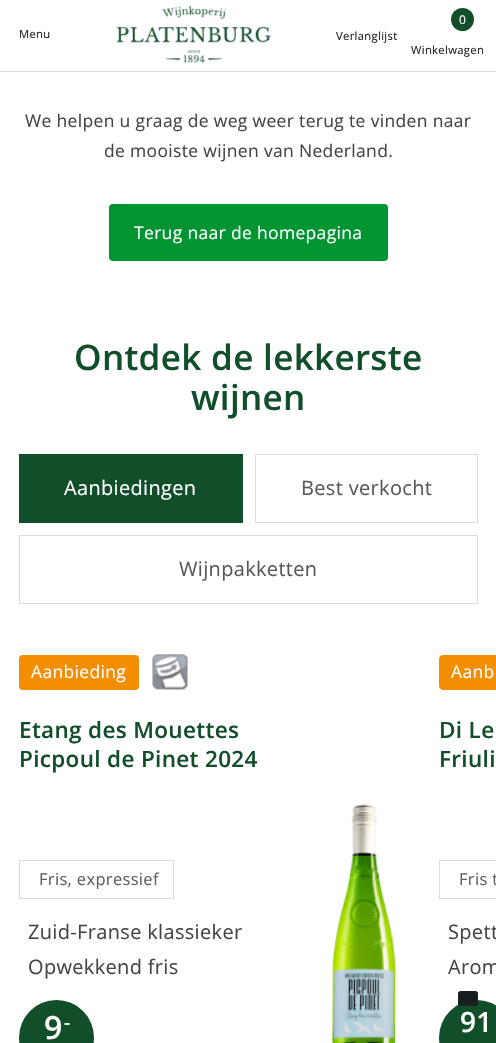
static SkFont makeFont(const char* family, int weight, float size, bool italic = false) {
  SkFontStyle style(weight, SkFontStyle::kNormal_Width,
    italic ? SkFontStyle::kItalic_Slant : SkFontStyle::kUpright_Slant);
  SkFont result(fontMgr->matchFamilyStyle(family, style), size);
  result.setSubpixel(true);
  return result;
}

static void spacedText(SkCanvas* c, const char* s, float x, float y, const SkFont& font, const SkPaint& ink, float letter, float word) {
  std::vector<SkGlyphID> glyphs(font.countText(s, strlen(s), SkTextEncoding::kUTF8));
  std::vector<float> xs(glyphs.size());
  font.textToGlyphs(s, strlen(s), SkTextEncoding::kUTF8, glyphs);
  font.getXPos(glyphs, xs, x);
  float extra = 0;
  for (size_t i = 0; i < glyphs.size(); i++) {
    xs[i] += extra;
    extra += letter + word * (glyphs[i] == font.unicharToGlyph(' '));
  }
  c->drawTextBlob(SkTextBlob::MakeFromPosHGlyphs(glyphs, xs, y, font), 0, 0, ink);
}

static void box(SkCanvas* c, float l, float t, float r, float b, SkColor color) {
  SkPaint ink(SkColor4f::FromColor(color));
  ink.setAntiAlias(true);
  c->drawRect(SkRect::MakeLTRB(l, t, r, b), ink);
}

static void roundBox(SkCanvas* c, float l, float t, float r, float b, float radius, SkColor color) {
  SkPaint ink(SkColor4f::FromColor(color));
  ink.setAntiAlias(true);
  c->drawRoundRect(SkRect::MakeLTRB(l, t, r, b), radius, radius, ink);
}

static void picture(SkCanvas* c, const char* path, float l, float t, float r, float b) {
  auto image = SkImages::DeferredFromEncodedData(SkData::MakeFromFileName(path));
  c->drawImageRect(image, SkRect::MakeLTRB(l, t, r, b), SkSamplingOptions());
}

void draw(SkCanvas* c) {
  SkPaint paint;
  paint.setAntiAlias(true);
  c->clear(0xffffffff);
  box(c, 0, 71, 496, 72, 0xffdbdbdb);
  SkFont face1 = makeFont("Open Sans", 400, 11.25f);
  paint.setColor(0xff222222);
  spacedText(c, "Menu", 19, 38, face1, paint, 0.33f, 0);
  picture(c, "img_01.png", 116, 6, 271, 63);
  spacedText(c, "Verlanglijst", 336, 40, face1, paint, 0.33f, 0);
  paint.setColor(0xff114e2a);
  c->drawCircle(462.5f, 19.5f, 11.5f, paint);
  SkFont face2 = makeFont("Open Sans", 400, 12);
  paint.setColor(0xffffffff);
  spacedText(c, "0", 459, 24, face2, paint, 0.33f, 0);
  paint.setColor(0xff222222);
  spacedText(c, "Winkelwagen", 411, 54, face1, paint, 0.33f, 0);
  SkFont face3 = makeFont("Open Sans", 400, 17.5f);
  paint.setColor(0xff444444);
  spacedText(c, "We helpen u graag de weg weer terug te vinden naar", 25, 127, face3, paint, 0.33f, 0);
  spacedText(c, "de mooiste wijnen van Nederland.", 104, 157, face3, paint, 0.33f, 0);
  roundBox(c, 109, 204, 388, 261, 4, 0xff009432);
  paint.setColor(0xffffffff);
  spacedText(c, "Terug naar de homepagina", 134, 239, face3, paint, 0.33f, 0);
  SkFont face4 = makeFont("Open Sans", 600, 35);
  paint.setColor(0xff114e2a);
  spacedText(c, "Ontdek de lekkerste", 74, 370, face4, paint, 0.33f, 0);
  spacedText(c, "wijnen", 191, 410, face4, paint, 0.33f, 0);
  box(c, 19, 454, 243, 523, 0xff114e2a);
  SkFont face5 = makeFont("Open Sans", 400, 20);
  paint.setColor(0xffffffff);
  spacedText(c, "Aanbiedingen", 64, 495, face5, paint, 0.33f, 0);
  paint.setStyle(SkPaint::kStroke_Style);
  paint.setStrokeWidth(1);
  paint.setColor(0xffdbdbdb);
  c->drawRect(SkRect::MakeLTRB(255.5f, 454.5f, 477.5f, 522.5f), paint);
  paint.setStyle(SkPaint::kFill_Style);
  paint.setColor(0xff585858);
  spacedText(c, "Best verkocht", 301, 495, face5, paint, 0.33f, 0);
  paint.setStyle(SkPaint::kStroke_Style);
  paint.setColor(0xffdbdbdb);
  c->drawRect(SkRect::MakeLTRB(19.5f, 535.5f, 477.5f, 603.5f), paint);
  paint.setStyle(SkPaint::kFill_Style);
  paint.setColor(0xff585858);
  spacedText(c, "Wijnpakketten", 179, 576, face5, paint, 0.33f, 0);
  roundBox(c, 19, 655, 139, 690, 4, 0xfff38e02);
  paint.setColor(0xffffffff);
  spacedText(c, "Aanbieding", 31, 678, face3, paint, 0.33f, 0);
  picture(c, "img_02.png", 152, 654, 188, 690);
  SkFont face6 = makeFont("Open Sans", 600, 22.5f);
  paint.setColor(0xff114e2a);
  spacedText(c, "Etang des Mouettes", 19, 738, face6, paint, 0.33f, 0);
  spacedText(c, "Picpoul de Pinet 2024", 19, 767, face6, paint, 0.33f, 0);
  paint.setStyle(SkPaint::kStroke_Style);
  paint.setColor(0xffdbdbdb);
  c->drawRect(SkRect::MakeLTRB(19.5f, 860.5f, 173.5f, 898.5f), paint);
  SkFont face7 = makeFont("Open Sans", 400, 16.5f);
  paint.setStyle(SkPaint::kFill_Style);
  paint.setColor(0xff5f5f5f);
  spacedText(c, "Fris, expressief", 39, 885, face7, paint, 0.33f, 0);
  paint.setColor(0xff444444);
  spacedText(c, "Zuid-Franse klassieker", 28, 939, face5, paint, 0.33f, 0);
  spacedText(c, "Opwekkend fris", 28, 974, face5, paint, 0.33f, 0);
  paint.setColor(0xff114e2a);
  c->drawCircle(56.5f, 1037.5f, 37.5f, paint);
  SkFont face8 = makeFont("Open Sans", 600, 32);
  paint.setColor(0xffffffff);
  spacedText(c, "9", 44, 1039, face8, paint, 0.33f, 0);
  SkFont face9 = makeFont("Open Sans", 600, 19);
  spacedText(c, "-", 64, 1029, face9, paint, 0.33f, 0);
  picture(c, "img_03.png", 331, 804, 397, 1043);
  paint.setColor(0xfff38e02);
  c->drawPath(SkPathBuilder().moveTo(443, 655).lineTo(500, 655).lineTo(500, 690).lineTo(443, 690).cubicTo(441, 690, 439, 688, 439, 686).lineTo(439, 659).cubicTo(439, 657, 441, 655, 443, 655).close().detach(), paint);
  paint.setColor(0xffffffff);
  spacedText(c, "Aanb", 451, 678, face3, paint, 0.33f, 0);
  paint.setColor(0xff114e2a);
  spacedText(c, "Di Le", 439, 738, face6, paint, 0.33f, 0);
  spacedText(c, "Friuli", 439, 767, face6, paint, 0.33f, 0);
  paint.setStyle(SkPaint::kStroke_Style);
  paint.setColor(0xffdbdbdb);
  c->drawRect(SkRect::MakeLTRB(439.5f, 860.5f, 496.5f, 898.5f), paint);
  paint.setStyle(SkPaint::kFill_Style);
  paint.setColor(0xff5f5f5f);
  spacedText(c, "Fris t", 459, 885, face7, paint, 0.33f, 0);
  paint.setColor(0xff444444);
  spacedText(c, "Spett", 448, 939, face5, paint, 0.33f, 0);
  spacedText(c, "Arom", 448, 974, face5, paint, 0.33f, 0);
  paint.setColor(0xff114e2a);
  c->drawCircle(476.5f, 1037.5f, 37.5f, paint);
  SkFont face10 = makeFont("Open Sans", 600, 28);
  paint.setColor(0xffffffff);
  spacedText(c, "91", 460, 1032, face10, paint, 0.33f, 0);
  roundBox(c, 458, 991, 478, 1006, 2.5f, 0xff181f22);
}
